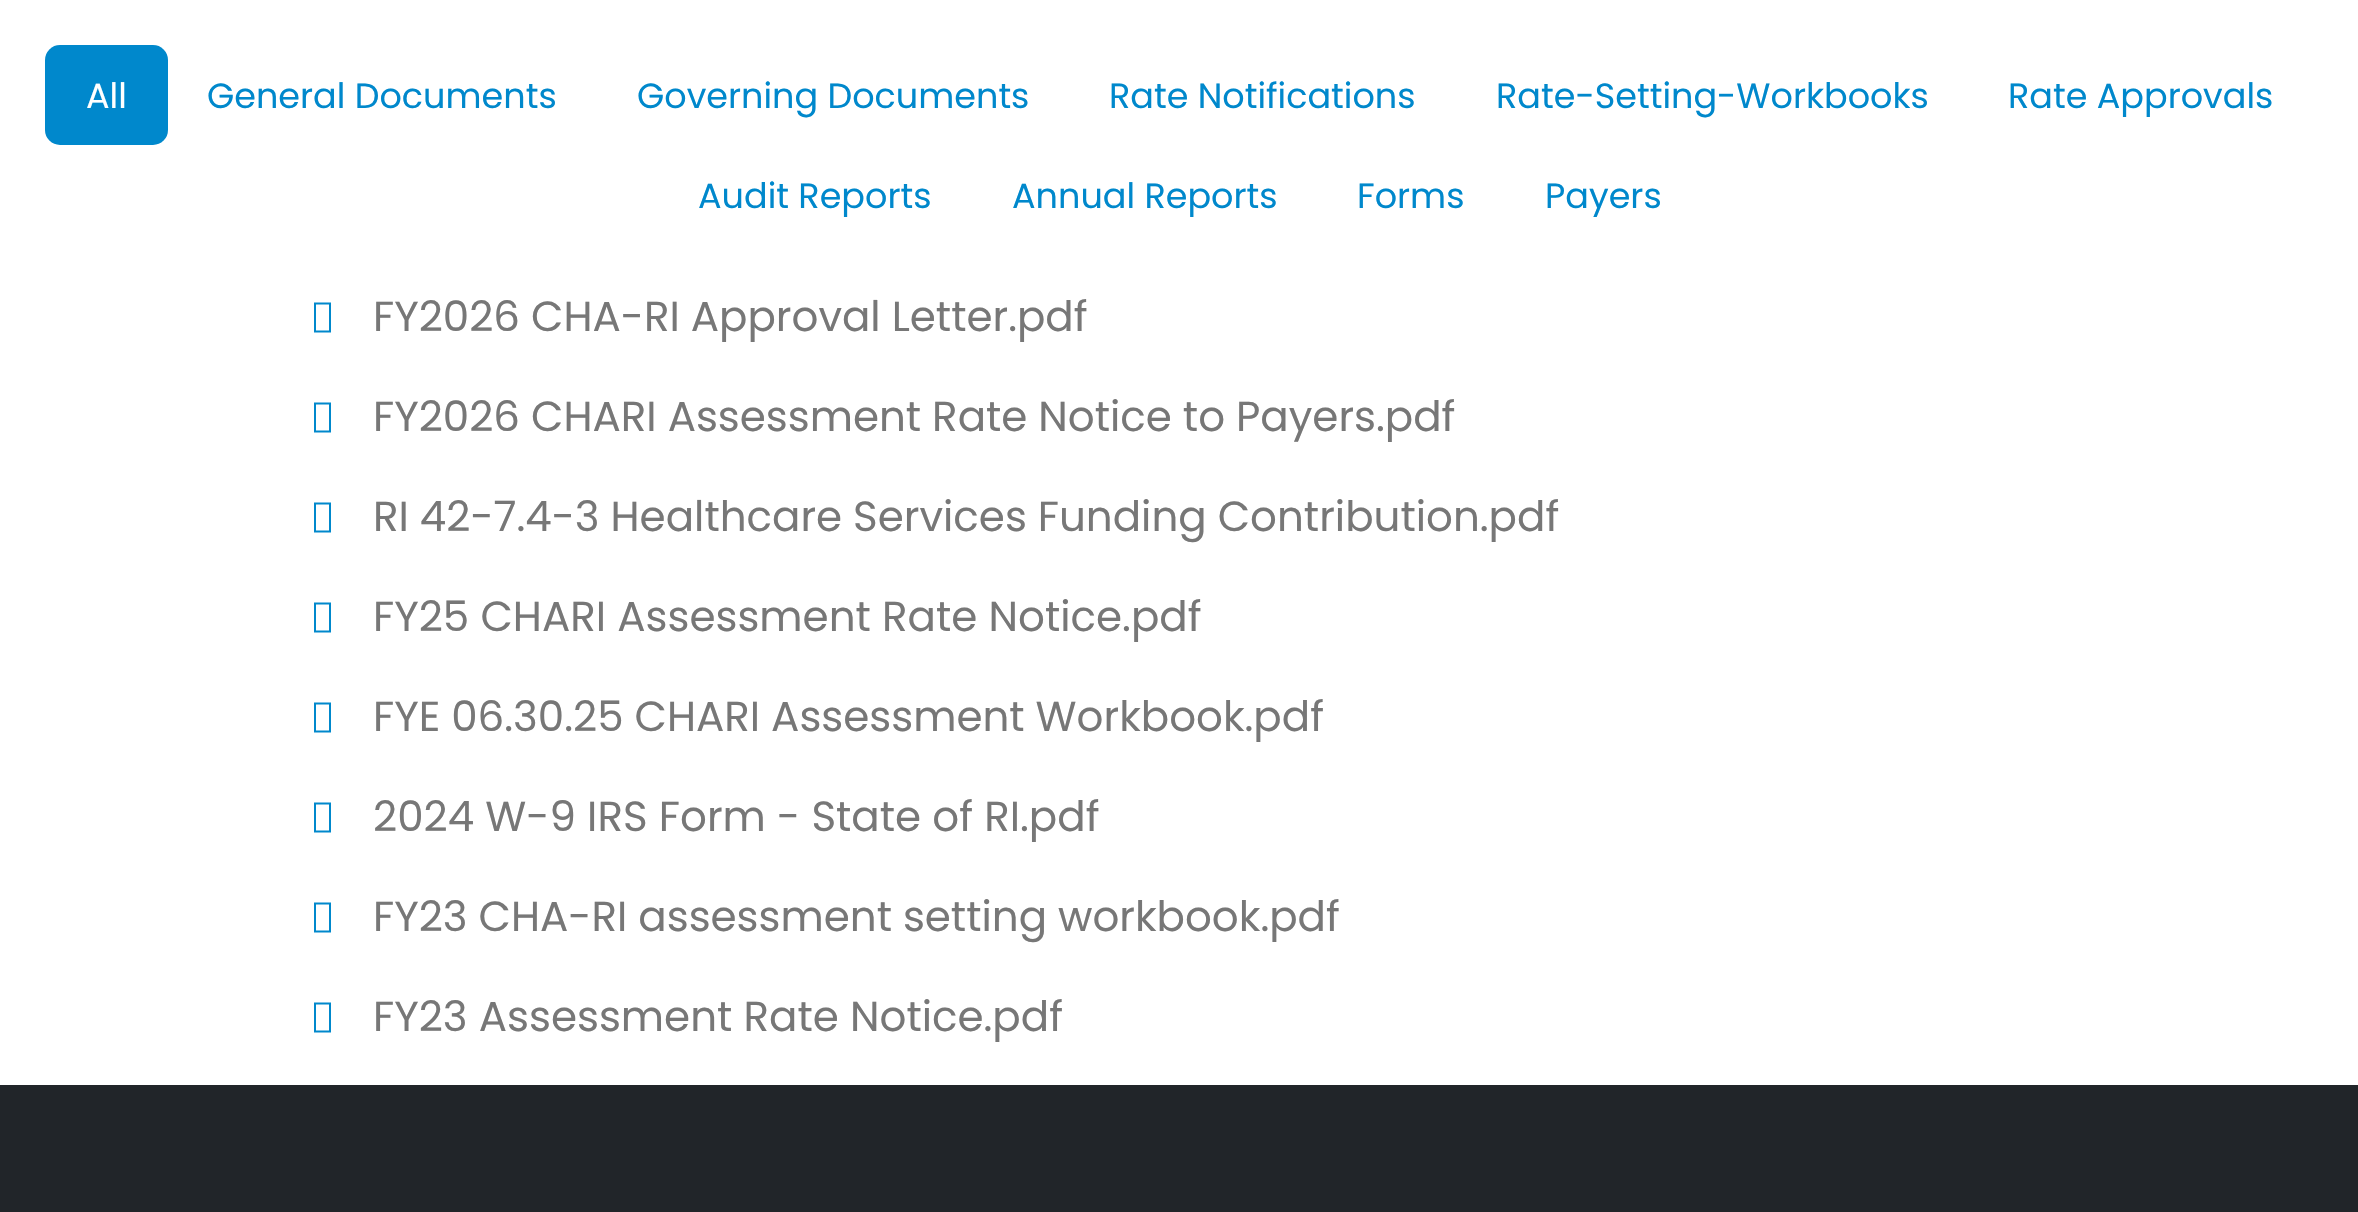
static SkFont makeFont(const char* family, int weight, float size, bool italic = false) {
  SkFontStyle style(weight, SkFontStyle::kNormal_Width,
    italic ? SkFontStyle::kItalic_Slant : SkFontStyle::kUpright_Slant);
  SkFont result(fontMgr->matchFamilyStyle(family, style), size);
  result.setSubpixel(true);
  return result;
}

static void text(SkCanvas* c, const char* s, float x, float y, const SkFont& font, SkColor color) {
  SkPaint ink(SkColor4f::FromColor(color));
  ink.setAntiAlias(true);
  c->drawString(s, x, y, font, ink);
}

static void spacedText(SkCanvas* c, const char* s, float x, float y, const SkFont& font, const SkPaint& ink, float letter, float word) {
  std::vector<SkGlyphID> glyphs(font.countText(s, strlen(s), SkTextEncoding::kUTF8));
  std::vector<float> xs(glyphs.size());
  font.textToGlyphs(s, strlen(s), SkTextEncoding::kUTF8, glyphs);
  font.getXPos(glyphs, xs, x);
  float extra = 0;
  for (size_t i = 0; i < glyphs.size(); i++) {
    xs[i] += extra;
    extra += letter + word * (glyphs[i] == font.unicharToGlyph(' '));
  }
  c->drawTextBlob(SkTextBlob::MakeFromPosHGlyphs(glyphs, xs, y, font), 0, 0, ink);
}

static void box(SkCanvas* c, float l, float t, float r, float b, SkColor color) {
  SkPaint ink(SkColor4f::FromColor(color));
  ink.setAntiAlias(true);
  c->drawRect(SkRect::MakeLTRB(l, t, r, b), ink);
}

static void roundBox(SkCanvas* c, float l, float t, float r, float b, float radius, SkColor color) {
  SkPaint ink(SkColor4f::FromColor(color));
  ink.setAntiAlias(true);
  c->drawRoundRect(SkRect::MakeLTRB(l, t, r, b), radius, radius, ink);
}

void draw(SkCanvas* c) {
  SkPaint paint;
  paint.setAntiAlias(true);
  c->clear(0xffffffff);
  roundBox(c, 45, 45, 168, 145, 15, 0xff0088cc);
  SkFont face1 = makeFont("Poppins", 400, 35);
  text(c, "All", 86, 108, face1, 0xffffffff);
  text(c, "General Documents", 207, 108, face1, 0xff0088cc);
  text(c, "Governing Documents", 637, 108, face1, 0xff0088cc);
  text(c, "Rate Notifications", 1109, 108, face1, 0xff0088cc);
  text(c, "Rate-Setting-Workbooks", 1496, 108, face1, 0xff0088cc);
  text(c, "Rate Approvals", 2008, 108, face1, 0xff0088cc);
  text(c, "Audit Reports", 698, 208, face1, 0xff0088cc);
  text(c, "Annual Reports", 1012, 208, face1, 0xff0088cc);
  text(c, "Forms", 1357, 208, face1, 0xff0088cc);
  text(c, "Payers", 1545, 208, face1, 0xff0088cc);
  paint.setColor(0xff0088cc);
  c->drawPath(SkPathBuilder().moveTo(314, 332.5f).lineTo(314, 302.5f).lineTo(331, 302.5f).lineTo(331, 332.5f).close().moveTo(316, 330.5f).lineTo(329, 330.5f).lineTo(329, 304.5f).lineTo(316, 304.5f).close().detach(), paint);
  SkFont face2 = makeFont("Poppins", 400, 42);
  paint.setColor(0xff777777);
  spacedText(c, "FY2026 CHA-RI Approval Letter.pdf", 373, 331, face2, paint, 0, -0.25f);
  paint.setColor(0xff0088cc);
  c->drawPath(SkPathBuilder().moveTo(314, 432.5f).lineTo(314, 402.5f).lineTo(331, 402.5f).lineTo(331, 432.5f).close().moveTo(316, 430.5f).lineTo(329, 430.5f).lineTo(329, 404.5f).lineTo(316, 404.5f).close().detach(), paint);
  paint.setColor(0xff777777);
  spacedText(c, "FY2026 CHARI Assessment Rate Notice to Payers.pdf", 373, 431, face2, paint, 0, -0.25f);
  paint.setColor(0xff0088cc);
  c->drawPath(SkPathBuilder().moveTo(314, 532.5f).lineTo(314, 502.5f).lineTo(331, 502.5f).lineTo(331, 532.5f).close().moveTo(316, 530.5f).lineTo(329, 530.5f).lineTo(329, 504.5f).lineTo(316, 504.5f).close().detach(), paint);
  paint.setColor(0xff777777);
  spacedText(c, "RI 42-7.4-3 Healthcare Services Funding Contribution.pdf", 373, 531, face2, paint, 0, -0.25f);
  paint.setColor(0xff0088cc);
  c->drawPath(SkPathBuilder().moveTo(314, 632.5f).lineTo(314, 602.5f).lineTo(331, 602.5f).lineTo(331, 632.5f).close().moveTo(316, 630.5f).lineTo(329, 630.5f).lineTo(329, 604.5f).lineTo(316, 604.5f).close().detach(), paint);
  text(c, "FY25 CHARI Assessment Rate Notice.pdf", 373, 631, face2, 0xff777777);
  c->drawPath(SkPathBuilder().moveTo(314, 732.5f).lineTo(314, 702.5f).lineTo(331, 702.5f).lineTo(331, 732.5f).close().moveTo(316, 730.5f).lineTo(329, 730.5f).lineTo(329, 704.5f).lineTo(316, 704.5f).close().detach(), paint);
  paint.setColor(0xff777777);
  spacedText(c, "FYE 06.30.25 CHARI Assessment Workbook.pdf", 373, 731, face2, paint, 0, -0.25f);
  paint.setColor(0xff0088cc);
  c->drawPath(SkPathBuilder().moveTo(314, 832.5f).lineTo(314, 802.5f).lineTo(331, 802.5f).lineTo(331, 832.5f).close().moveTo(316, 830.5f).lineTo(329, 830.5f).lineTo(329, 804.5f).lineTo(316, 804.5f).close().detach(), paint);
  text(c, "2024 W-9 IRS Form - State of RI.pdf", 373, 831, face2, 0xff777777);
  c->drawPath(SkPathBuilder().moveTo(314, 932.5f).lineTo(314, 902.5f).lineTo(331, 902.5f).lineTo(331, 932.5f).close().moveTo(316, 930.5f).lineTo(329, 930.5f).lineTo(329, 904.5f).lineTo(316, 904.5f).close().detach(), paint);
  paint.setColor(0xff777777);
  spacedText(c, "FY23 CHA-RI assessment setting workbook.pdf", 373, 931, face2, paint, 0, -0.25f);
  paint.setColor(0xff0088cc);
  c->drawPath(SkPathBuilder().moveTo(314, 1032.5f).lineTo(314, 1002.5f).lineTo(331, 1002.5f).lineTo(331, 1032.5f).close().moveTo(316, 1030.5f).lineTo(329, 1030.5f).lineTo(329, 1004.5f).lineTo(316, 1004.5f).close().detach(), paint);
  text(c, "FY23 Assessment Rate Notice.pdf", 373, 1031, face2, 0xff777777);
  box(c, 0, 1085, 2358, 1212, 0xff212529);
}
